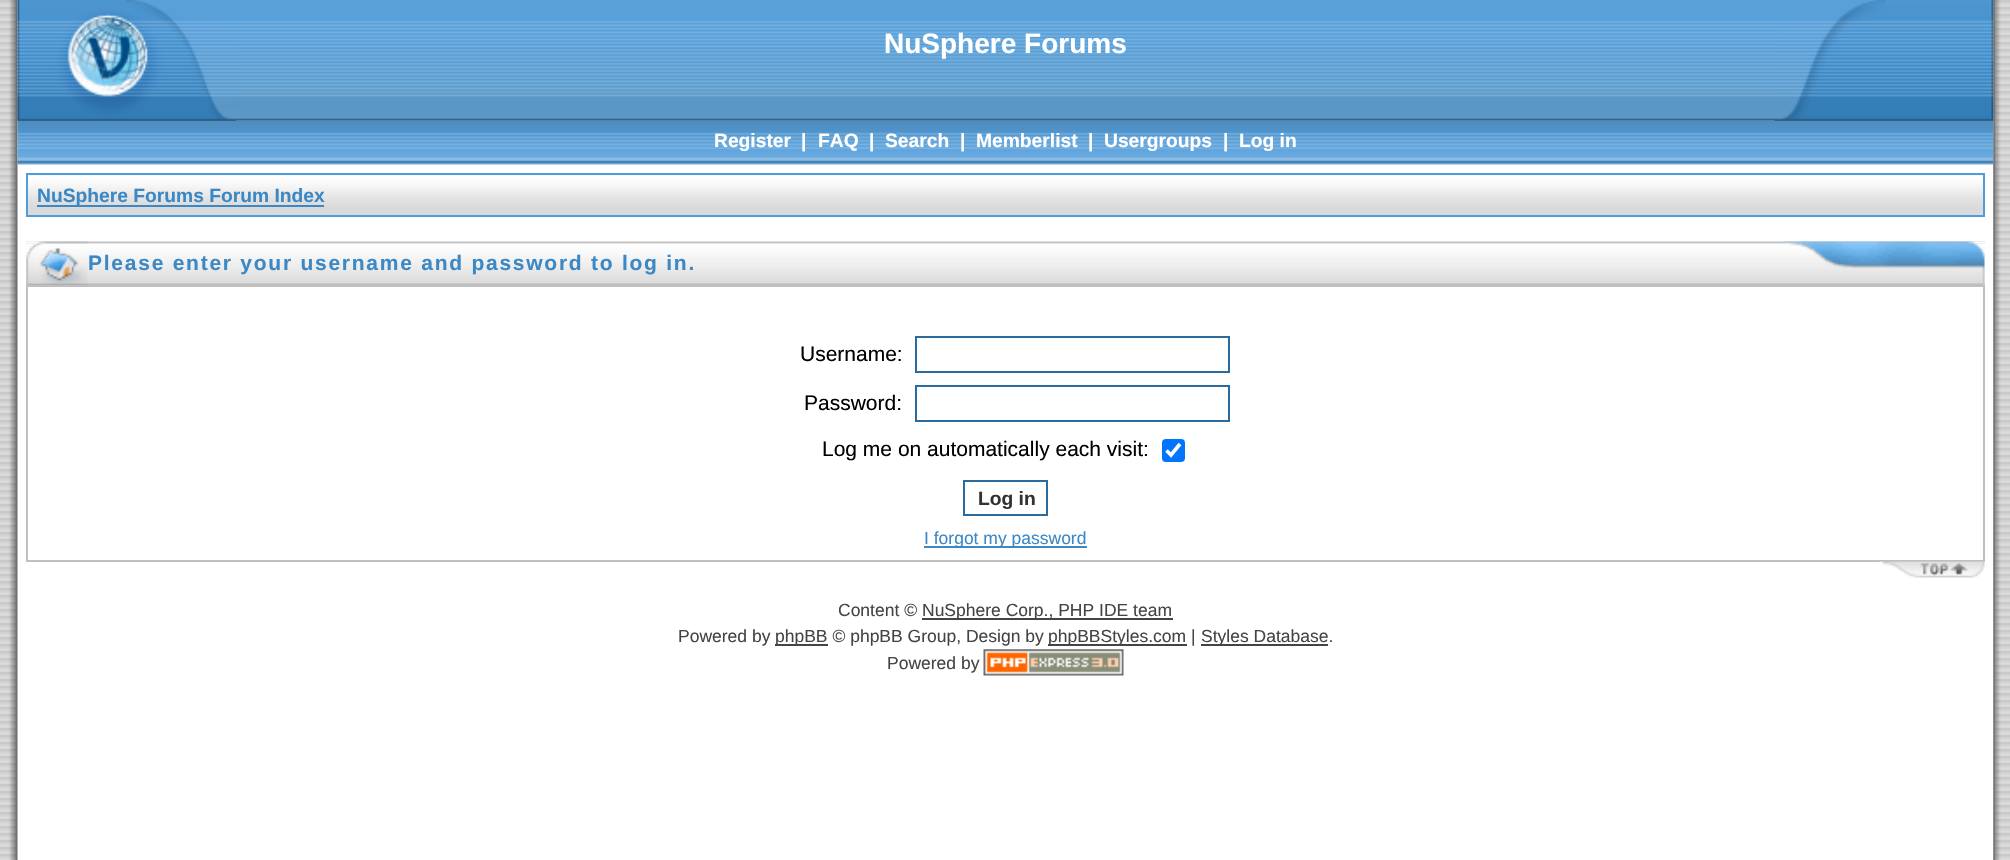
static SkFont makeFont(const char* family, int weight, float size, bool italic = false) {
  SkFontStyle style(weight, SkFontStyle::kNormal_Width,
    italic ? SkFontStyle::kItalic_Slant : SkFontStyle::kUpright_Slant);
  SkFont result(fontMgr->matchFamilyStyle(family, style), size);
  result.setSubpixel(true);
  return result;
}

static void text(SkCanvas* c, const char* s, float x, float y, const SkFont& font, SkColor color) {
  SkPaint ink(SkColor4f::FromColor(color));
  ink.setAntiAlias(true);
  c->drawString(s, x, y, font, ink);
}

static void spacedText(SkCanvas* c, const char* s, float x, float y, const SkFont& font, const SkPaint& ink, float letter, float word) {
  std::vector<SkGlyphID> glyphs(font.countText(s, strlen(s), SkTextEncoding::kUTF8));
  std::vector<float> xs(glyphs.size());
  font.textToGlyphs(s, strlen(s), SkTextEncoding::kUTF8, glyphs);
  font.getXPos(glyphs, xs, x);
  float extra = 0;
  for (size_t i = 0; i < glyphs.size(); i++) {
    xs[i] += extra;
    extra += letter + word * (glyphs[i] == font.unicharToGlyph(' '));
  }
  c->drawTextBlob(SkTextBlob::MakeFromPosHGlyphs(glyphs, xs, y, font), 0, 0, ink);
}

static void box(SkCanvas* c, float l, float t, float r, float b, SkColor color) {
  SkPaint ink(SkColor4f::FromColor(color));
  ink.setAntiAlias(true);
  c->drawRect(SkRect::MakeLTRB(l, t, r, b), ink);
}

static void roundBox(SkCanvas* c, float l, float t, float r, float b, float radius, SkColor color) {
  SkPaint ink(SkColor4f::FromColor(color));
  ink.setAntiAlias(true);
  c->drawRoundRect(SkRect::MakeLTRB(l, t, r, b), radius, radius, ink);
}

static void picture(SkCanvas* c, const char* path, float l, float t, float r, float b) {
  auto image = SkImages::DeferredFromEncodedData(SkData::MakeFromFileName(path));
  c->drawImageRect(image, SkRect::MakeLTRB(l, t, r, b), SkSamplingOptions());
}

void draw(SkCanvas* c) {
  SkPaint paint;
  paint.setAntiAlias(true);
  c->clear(0xffffffff);
  picture(c, "img_01.png", 0, 0, 18, 860);
  picture(c, "img_02.png", 17, 0, 1994, 121);
  picture(c, "img_05.png", 17, 120, 1994, 165);
  picture(c, "img_03.png", 17, 0, 237, 121);
  SkFont face1 = makeFont("Liberation Sans", 700, 28);
  text(c, "NuSphere Forums", 884, 53, face1, 0xffffffff);
  picture(c, "img_12.png", 1993, 0, 2010, 860);
  picture(c, "img_04.png", 1774, 0, 1994, 121);
  SkFont face2 = makeFont("Liberation Sans", 700, 19.25f);
  text(c, "Register", 714, 147, face2, 0xffffffff);
  text(c, "|", 801, 147, face2, 0xffffffff);
  text(c, "FAQ", 818, 147, face2, 0xffffffff);
  text(c, "|", 869, 147, face2, 0xffffffff);
  text(c, "Search", 885, 147, face2, 0xffffffff);
  text(c, "|", 960, 147, face2, 0xffffffff);
  text(c, "Memberlist", 976, 147, face2, 0xffffffff);
  text(c, "|", 1088, 147, face2, 0xffffffff);
  text(c, "Usergroups", 1104, 147, face2, 0xffffffff);
  text(c, "|", 1223, 147, face2, 0xffffffff);
  text(c, "Log in", 1239, 147, face2, 0xffffffff);
  picture(c, "img_06.png", 28, 175, 1983, 215);
  paint.setStyle(SkPaint::kStroke_Style);
  paint.setStrokeWidth(2);
  paint.setColor(0xff4e9edd);
  c->drawRect(SkRect::MakeLTRB(27, 174, 1984, 216), paint);
  box(c, 37, 205, 324, 207, 0xff3b88c5);
  text(c, "NuSphere Forums Forum Index", 37, 202, face2, 0xff3b88c5);
  picture(c, "img_07.png", 26, 241, 1985, 285);
  box(c, 26, 285, 1985, 562, 0xffc0c0c0);
  picture(c, "img_08.png", 26, 241, 88, 286);
  SkFont face3 = makeFont("Liberation Sans", 700, 21);
  paint.setStyle(SkPaint::kFill_Style);
  paint.setColor(0xff3b88c5);
  spacedText(c, "Please enter your username and password to log in.", 88, 270, face3, paint, 1.75f, 0);
  picture(c, "img_09.png", 1783, 241, 1985, 285);
  box(c, 28, 287, 1983, 560, 0xffffffff);
  SkFont face4 = makeFont("Liberation Sans", 400, 21);
  text(c, "Username:", 800, 361, face4, 0xff000000);
  paint.setStyle(SkPaint::kStroke_Style);
  paint.setColor(0xff2c6b9d);
  c->drawRect(SkRect::MakeLTRB(916, 337, 1229, 372), paint);
  text(c, "Password:", 804, 410, face4, 0xff000000);
  c->drawRect(SkRect::MakeLTRB(916, 386, 1229, 421), paint);
  text(c, "Log me on automatically each visit:", 822, 456, face4, 0xff000000);
  roundBox(c, 1162, 439, 1185, 462, 4, 0xff0075ff);
  paint.setStrokeWidth(3.6f);
  paint.setColor(0xffffffff);
  c->drawPath(SkPathBuilder().moveTo(1166.5f, 450.5f).lineTo(1171, 455).lineTo(1180, 444).detach(), paint);
  paint.setStrokeWidth(2);
  paint.setColor(0xff2c6b9d);
  c->drawRect(SkRect::MakeLTRB(964, 481, 1047, 515), paint);
  text(c, "Log in", 978, 505, face2, 0xff333333);
  box(c, 924, 546, 1087, 548, 0xff3b88c5);
  SkFont face5 = makeFont("Liberation Sans", 400, 17.5f);
  text(c, "I forgot my password", 924, 544, face5, 0xff3b88c5);
  picture(c, "img_10.png", 1879, 561, 1985, 578);
  text(c, "Content ©", 838, 616, face5, 0xff444444);
  box(c, 922, 618, 1173, 620, 0xff444444);
  text(c, "NuSphere Corp., PHP IDE team", 922, 616, face5, 0xff444444);
  text(c, "Powered by", 678, 642, face5, 0xff444444);
  box(c, 775, 644, 828, 646, 0xff444444);
  text(c, "phpBB © phpBB Group, Design by", 775, 642, face5, 0xff444444);
  box(c, 1048, 644, 1187, 646, 0xff444444);
  text(c, "phpBBStyles.com |", 1048, 642, face5, 0xff444444);
  box(c, 1201, 644, 1328, 646, 0xff444444);
  text(c, "Styles Database.", 1201, 642, face5, 0xff444444);
  text(c, "Powered by", 887, 669, face5, 0xff444444);
  picture(c, "img_11.png", 983, 649, 1124, 676);
}
